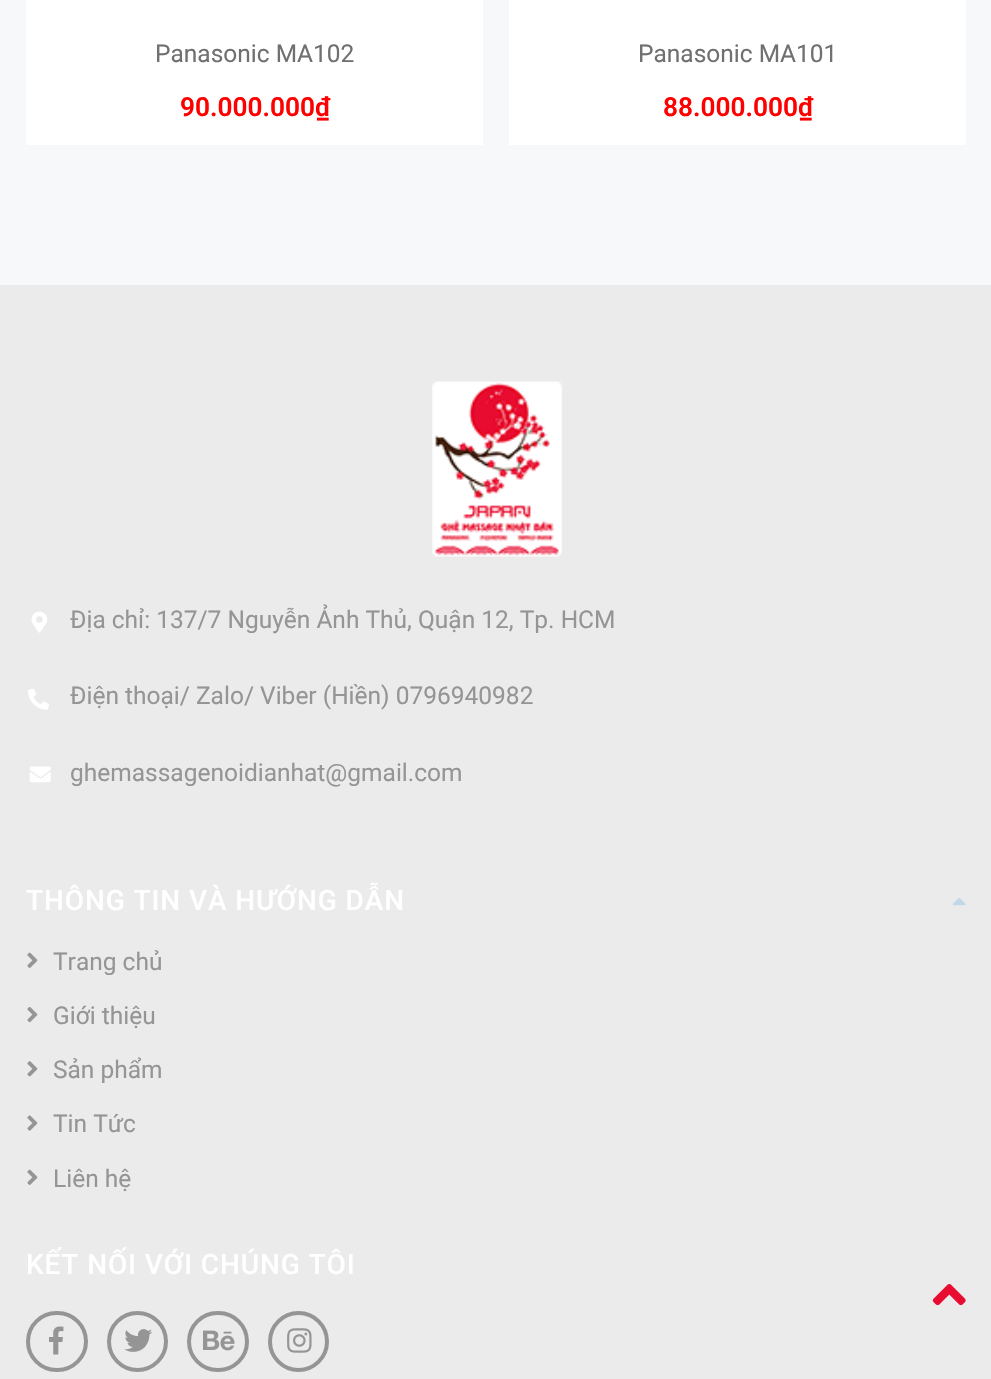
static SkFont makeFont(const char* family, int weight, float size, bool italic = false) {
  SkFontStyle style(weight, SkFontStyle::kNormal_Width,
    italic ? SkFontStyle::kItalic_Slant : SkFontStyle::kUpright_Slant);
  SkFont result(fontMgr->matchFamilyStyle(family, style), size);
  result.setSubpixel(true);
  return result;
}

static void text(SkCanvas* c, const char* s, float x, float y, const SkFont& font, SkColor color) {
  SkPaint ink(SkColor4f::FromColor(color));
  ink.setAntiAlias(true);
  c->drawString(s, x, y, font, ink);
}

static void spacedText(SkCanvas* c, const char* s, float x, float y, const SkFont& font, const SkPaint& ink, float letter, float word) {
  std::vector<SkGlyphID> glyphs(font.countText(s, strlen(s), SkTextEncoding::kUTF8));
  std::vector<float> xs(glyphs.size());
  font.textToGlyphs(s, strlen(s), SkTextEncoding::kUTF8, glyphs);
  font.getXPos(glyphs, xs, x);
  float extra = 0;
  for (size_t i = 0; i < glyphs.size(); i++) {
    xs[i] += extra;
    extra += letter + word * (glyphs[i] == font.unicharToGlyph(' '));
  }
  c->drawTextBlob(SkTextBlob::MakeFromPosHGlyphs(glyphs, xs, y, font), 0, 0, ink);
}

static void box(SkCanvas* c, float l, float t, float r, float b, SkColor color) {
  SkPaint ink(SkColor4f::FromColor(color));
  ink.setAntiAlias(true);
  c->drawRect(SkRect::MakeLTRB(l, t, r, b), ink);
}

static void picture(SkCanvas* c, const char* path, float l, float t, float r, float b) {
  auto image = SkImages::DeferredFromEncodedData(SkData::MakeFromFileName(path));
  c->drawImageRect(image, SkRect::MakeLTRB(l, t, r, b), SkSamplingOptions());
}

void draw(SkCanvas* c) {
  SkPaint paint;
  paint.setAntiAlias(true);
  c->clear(0xfff7f8fa);
  box(c, 26, 0, 483, 145, 0xffffffff);
  SkFont face1 = makeFont("Roboto", 400, 24.5f);
  text(c, "Panasonic MA102", 155, 62, face1, 0xff707070);
  SkFont face2 = makeFont("Roboto", 600, 26.25f);
  text(c, "90.000.000₫", 180, 116, face2, 0xffff0000);
  box(c, 509, 0, 966, 145, 0xffffffff);
  text(c, "Panasonic MA101", 638, 62, face1, 0xff707070);
  text(c, "88.000.000₫", 663, 116, face2, 0xffff0000);
  box(c, 0, 285, 991, 1379, 0xffebebeb);
  picture(c, "img_01.png", 432, 381, 562, 557);
  picture(c, "img_02.png", 31, 611, 48, 633);
  text(c, "Địa chỉ: 137/7 Nguyễn Ảnh Thủ, Quận 12, Tp. HCM", 70, 628, face1, 0xff959595);
  picture(c, "img_03.png", 28, 688, 49, 710);
  text(c, "Điện thoại/ Zalo/ Viber (Hiền) 0796940982", 70, 704, face1, 0xff959595);
  picture(c, "img_04.png", 29, 766, 51, 783);
  text(c, "ghemassagenoidianhat@gmail.com", 70, 781, face1, 0xff959595);
  SkFont face3 = makeFont("Roboto", 500, 28);
  paint.setColor(0xffffffff);
  spacedText(c, "THÔNG TIN VÀ HƯỚNG DẪN", 26, 910, face3, paint, 0.9f, 0);
  picture(c, "img_05.png", 952, 898, 966, 906);
  picture(c, "img_06.png", 27, 952, 38, 968);
  text(c, "Trang chủ", 53, 970, face1, 0xff959595);
  picture(c, "img_07.png", 27, 1007, 38, 1023);
  text(c, "Giới thiệu", 53, 1024, face1, 0xff959595);
  picture(c, "img_08.png", 27, 1061, 38, 1077);
  text(c, "Sản phẩm", 53, 1078, face1, 0xff959595);
  picture(c, "img_09.png", 27, 1115, 38, 1131);
  text(c, "Tin Tức", 53, 1132, face1, 0xff959595);
  picture(c, "img_06.png", 27, 1169, 38, 1185);
  text(c, "Liên hệ", 53, 1187, face1, 0xff959595);
  spacedText(c, "KẾT NỐI VỚI CHÚNG TÔI", 26, 1274, face3, paint, 0.9f, 0);
  paint.setStyle(SkPaint::kStroke_Style);
  paint.setStrokeWidth(4);
  paint.setColor(0xff959595);
  c->drawRoundRect(SkRect::MakeLTRB(28, 1313, 86, 1370), 28.5f, 28.5f, paint);
  picture(c, "img_10.png", 49, 1326, 64, 1355);
  c->drawCircle(137.5f, 1341.5f, 28.5f, paint);
  picture(c, "img_11.png", 124, 1329, 152, 1352);
  c->drawRoundRect(SkRect::MakeLTRB(189, 1313, 247, 1370), 28.5f, 28.5f, paint);
  picture(c, "img_12.png", 203, 1330, 235, 1351);
  c->drawCircle(298.5f, 1341.5f, 28.5f, paint);
  picture(c, "img_13.png", 287, 1328, 312, 1353);
  picture(c, "img_14.png", 932, 1284, 966, 1306);
}
